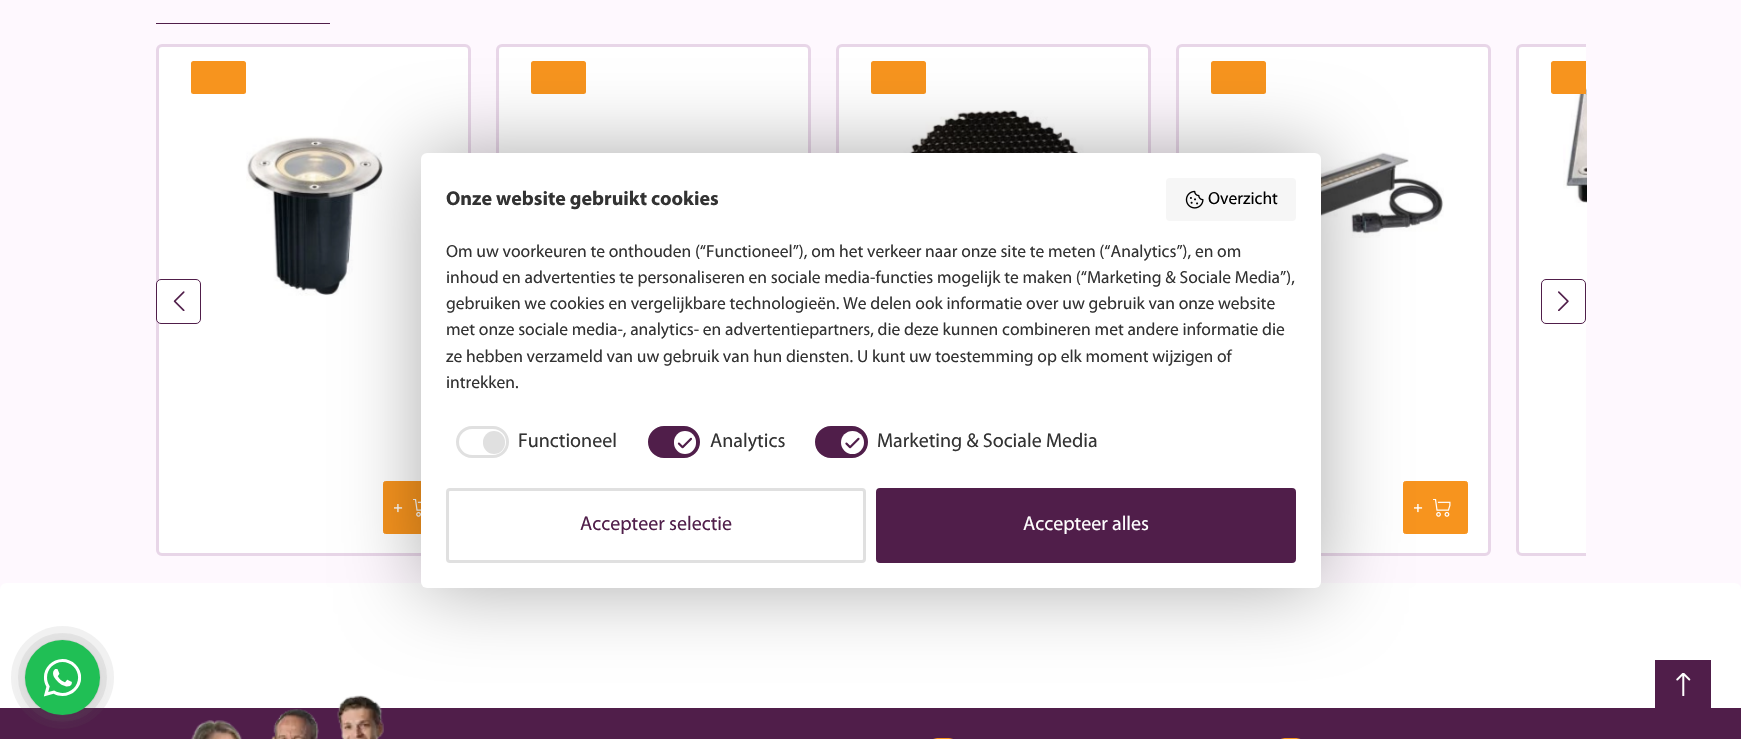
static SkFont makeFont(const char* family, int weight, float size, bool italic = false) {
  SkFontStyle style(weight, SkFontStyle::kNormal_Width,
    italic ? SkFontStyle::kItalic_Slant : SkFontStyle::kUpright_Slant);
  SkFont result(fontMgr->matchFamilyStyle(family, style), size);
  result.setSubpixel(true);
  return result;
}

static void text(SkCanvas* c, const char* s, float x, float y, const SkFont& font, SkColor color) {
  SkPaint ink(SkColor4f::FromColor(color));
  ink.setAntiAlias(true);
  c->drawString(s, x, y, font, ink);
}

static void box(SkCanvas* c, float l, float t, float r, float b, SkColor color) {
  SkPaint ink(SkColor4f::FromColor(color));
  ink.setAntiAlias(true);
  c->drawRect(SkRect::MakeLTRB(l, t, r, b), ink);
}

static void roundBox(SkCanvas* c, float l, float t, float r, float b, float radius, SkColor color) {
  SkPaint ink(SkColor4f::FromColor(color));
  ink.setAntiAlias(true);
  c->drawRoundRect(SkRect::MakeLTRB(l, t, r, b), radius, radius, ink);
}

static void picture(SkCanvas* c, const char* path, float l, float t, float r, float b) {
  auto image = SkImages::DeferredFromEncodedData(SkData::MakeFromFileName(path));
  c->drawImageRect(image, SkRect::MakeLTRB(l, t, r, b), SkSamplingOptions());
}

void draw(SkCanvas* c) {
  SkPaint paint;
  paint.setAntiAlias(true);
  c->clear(0xfffef8fe);
  box(c, 156, 23, 330, 24, 0xff501e4a);
  paint.setColor(0xffffffff);
  c->drawRoundRect(SkRect::MakeLTRB(157.5f, 45.5f, 469.5f, 554.5f), 4.5f, 4.5f, paint);
  paint.setStyle(SkPaint::kStroke_Style);
  paint.setStrokeWidth(3);
  paint.setColor(0xffe8d6e8);
  c->drawRoundRect(SkRect::MakeLTRB(157.5f, 45.5f, 469.5f, 554.5f), 4.5f, 4.5f, paint);
  roundBox(c, 191, 61, 246, 94, 2.5f, 0xfff7941e);
  picture(c, "img_01.png", 246, 136, 383, 296);
  paint.setStyle(SkPaint::kFill_Style);
  paint.setColor(0xfff7941e);
  c->drawRoundRect(SkRect::MakeLTRB(383.5f, 481.5f, 447.5f, 533.5f), 2, 2, paint);
  paint.setStyle(SkPaint::kStroke_Style);
  paint.setStrokeWidth(1);
  c->drawRoundRect(SkRect::MakeLTRB(383.5f, 481.5f, 447.5f, 533.5f), 2, 2, paint);
  picture(c, "img_02.png", 394, 504, 403, 513);
  picture(c, "img_03.png", 413, 499, 421, 517);
  paint.setStyle(SkPaint::kFill_Style);
  paint.setColor(0xffffffff);
  c->drawRoundRect(SkRect::MakeLTRB(497.5f, 45.5f, 809.5f, 554.5f), 4.5f, 4.5f, paint);
  paint.setStyle(SkPaint::kStroke_Style);
  paint.setStrokeWidth(3);
  paint.setColor(0xffe8d6e8);
  c->drawRoundRect(SkRect::MakeLTRB(497.5f, 45.5f, 809.5f, 554.5f), 4.5f, 4.5f, paint);
  roundBox(c, 531, 61, 586, 94, 2.5f, 0xfff7941e);
  paint.setStyle(SkPaint::kFill_Style);
  paint.setColor(0xffffffff);
  c->drawRoundRect(SkRect::MakeLTRB(837.5f, 45.5f, 1149.5f, 554.5f), 4.5f, 4.5f, paint);
  paint.setStyle(SkPaint::kStroke_Style);
  paint.setColor(0xffe8d6e8);
  c->drawRoundRect(SkRect::MakeLTRB(837.5f, 45.5f, 1149.5f, 554.5f), 4.5f, 4.5f, paint);
  roundBox(c, 871, 61, 926, 94, 2.5f, 0xfff7941e);
  picture(c, "img_04.png", 891, 110, 1097, 153);
  paint.setStyle(SkPaint::kFill_Style);
  paint.setColor(0xffffffff);
  c->drawRoundRect(SkRect::MakeLTRB(1177.5f, 45.5f, 1489.5f, 554.5f), 4.5f, 4.5f, paint);
  paint.setStyle(SkPaint::kStroke_Style);
  paint.setColor(0xffe8d6e8);
  c->drawRoundRect(SkRect::MakeLTRB(1177.5f, 45.5f, 1489.5f, 554.5f), 4.5f, 4.5f, paint);
  roundBox(c, 1211, 61, 1266, 94, 2.5f, 0xfff7941e);
  picture(c, "img_05.png", 1236, 152, 1444, 238);
  paint.setStyle(SkPaint::kFill_Style);
  paint.setColor(0xfff7941e);
  c->drawRoundRect(SkRect::MakeLTRB(1403.5f, 481.5f, 1467.5f, 533.5f), 2, 2, paint);
  paint.setStyle(SkPaint::kStroke_Style);
  paint.setStrokeWidth(1);
  c->drawRoundRect(SkRect::MakeLTRB(1403.5f, 481.5f, 1467.5f, 533.5f), 2, 2, paint);
  picture(c, "img_02.png", 1414, 504, 1423, 513);
  picture(c, "img_06.png", 1433, 499, 1451, 517);
  paint.setStyle(SkPaint::kFill_Style);
  paint.setColor(0xffffffff);
  c->drawPath(SkPathBuilder().moveTo(1522, 44).lineTo(1586, 44).lineTo(1586, 556).lineTo(1522, 556).cubicTo(1518.5f, 556, 1516, 553.5f, 1516, 550).lineTo(1516, 50).cubicTo(1516, 46.5f, 1518.5f, 44, 1522, 44).close().detach(), paint);
  c->save();
  c->clipRect(SkRect::MakeLTRB(156, 44, 1586, 558));
  paint.setStyle(SkPaint::kStroke_Style);
  paint.setStrokeWidth(3);
  paint.setColor(0xffe8d6e8);
  c->drawRoundRect(SkRect::MakeLTRB(1517.5f, 45.5f, 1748.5f, 554.5f), 4.5f, 4.5f, paint);
  c->restore();
  picture(c, "img_07.png", 1563, 74, 1587, 324);
  paint.setStyle(SkPaint::kFill_Style);
  paint.setColor(0xfff7941e);
  c->drawPath(SkPathBuilder().moveTo(1553.5f, 61).lineTo(1586, 61).lineTo(1586, 94).lineTo(1553.5f, 94).cubicTo(1552, 94, 1551, 93, 1551, 91.5f).lineTo(1551, 63.5f).cubicTo(1551, 62, 1552, 61, 1553.5f, 61).close().detach(), paint);
  paint.setColor(0xffffffff);
  c->drawRoundRect(SkRect::MakeLTRB(156.5f, 279.5f, 200.5f, 323.5f), 4.5f, 4.5f, paint);
  paint.setStyle(SkPaint::kStroke_Style);
  paint.setStrokeWidth(1);
  paint.setColor(0xff501e4a);
  c->drawRoundRect(SkRect::MakeLTRB(156.5f, 279.5f, 200.5f, 323.5f), 4.5f, 4.5f, paint);
  picture(c, "img_08.png", 173, 291, 185, 311);
  c->drawRoundRect(SkRect::MakeLTRB(1541.5f, 279.5f, 1585.5f, 323.5f), 4.5f, 4.5f, paint);
  picture(c, "img_09.png", 1558, 291, 1569, 311);
  roundBox(c, 0, 583, 1741, 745, 6, 0xffffffff);
  box(c, 0, 708, 1741, 739, 0xff501e4a);
  picture(c, "img_13.png", 191, 695, 384, 739);
  paint.setStyle(SkPaint::kFill_Style);
  paint.setColor(0x54000000);
  paint.setMaskFilter(SkMaskFilter::MakeBlur(kNormal_SkBlurStyle, 40));
  c->drawRoundRect(SkRect::MakeLTRB(421, 153, 1321, 588), 6, 6, paint);
  paint.setMaskFilter(nullptr);
  roundBox(c, 421, 153, 1321, 588, 6, 0xffffffff);
  SkFont face1 = makeFont("Myriad", 700, 20);
  text(c, "Onze website gebruikt cookies", 446, 205, face1, 0xff333333);
  roundBox(c, 1166, 178, 1296, 221, 4, 0xfff6f6f6);
  picture(c, "img_10.png", 1185, 190, 1204, 209);
  SkFont face2 = makeFont("Myriad", 400, 17.5f);
  text(c, "Overzicht", 1208, 204, face2, 0xff000000);
  text(c, "Om uw voorkeuren te onthouden (“Functioneel”), om het verkeer naar onze site te meten (“Analytics”), en om", 446, 257, face2, 0xff333333);
  text(c, "inhoud en advertenties te personaliseren en sociale media-functies mogelijk te maken (“Marketing & Sociale Media”),", 446, 283, face2, 0xff333333);
  text(c, "gebruiken we cookies en vergelijkbare technologieën. We delen ook informatie over uw gebruik van onze website", 446, 309, face2, 0xff333333);
  text(c, "met onze sociale media-, analytics- en advertentiepartners, die deze kunnen combineren met andere informatie die", 446, 335, face2, 0xff333333);
  text(c, "ze hebben verzameld van uw gebruik van hun diensten. U kunt uw toestemming op elk moment wijzigen of", 446, 362, face2, 0xff333333);
  text(c, "intrekken.", 446, 388, face2, 0xff333333);
  paint.setStyle(SkPaint::kStroke_Style);
  paint.setStrokeWidth(3);
  paint.setColor(0xffe0e0e0);
  c->drawRoundRect(SkRect::MakeLTRB(457.5f, 427.5f, 507.5f, 456.5f), 14.5f, 14.5f, paint);
  roundBox(c, 483, 431, 505, 454, 11, 0xffe0e0e0);
  SkFont face3 = makeFont("Myriad", 400, 20);
  text(c, "Functioneel", 518, 447, face3, 0xff333333);
  paint.setStyle(SkPaint::kFill_Style);
  paint.setColor(0xff501e4a);
  c->drawRoundRect(SkRect::MakeLTRB(649.5f, 427.5f, 698.5f, 456.5f), 14.5f, 14.5f, paint);
  paint.setStyle(SkPaint::kStroke_Style);
  c->drawRoundRect(SkRect::MakeLTRB(649.5f, 427.5f, 698.5f, 456.5f), 14.5f, 14.5f, paint);
  roundBox(c, 674, 431, 696, 454, 11, 0xffffffff);
  picture(c, "img_11.png", 677, 437, 692, 449);
  text(c, "Analytics", 710, 447, face3, 0xff333333);
  paint.setStyle(SkPaint::kFill_Style);
  c->drawRoundRect(SkRect::MakeLTRB(816.5f, 427.5f, 866.5f, 456.5f), 14.5f, 14.5f, paint);
  paint.setStyle(SkPaint::kStroke_Style);
  c->drawRoundRect(SkRect::MakeLTRB(816.5f, 427.5f, 866.5f, 456.5f), 14.5f, 14.5f, paint);
  paint.setStyle(SkPaint::kFill_Style);
  paint.setColor(0xffffffff);
  c->drawCircle(852.5f, 442.5f, 11.5f, paint);
  picture(c, "img_12.png", 845, 437, 860, 449);
  text(c, "Marketing & Sociale Media", 877, 447, face3, 0xff333333);
  paint.setStyle(SkPaint::kStroke_Style);
  paint.setColor(0xffe0e0e0);
  c->drawRoundRect(SkRect::MakeLTRB(447.5f, 489.5f, 864.5f, 561.5f), 2.5f, 2.5f, paint);
  text(c, "Accepteer selectie", 580, 530, face3, 0xff501e4a);
  paint.setStyle(SkPaint::kFill_Style);
  paint.setColor(0xff501e4a);
  c->drawRoundRect(SkRect::MakeLTRB(877.5f, 489.5f, 1294.5f, 561.5f), 2.5f, 2.5f, paint);
  paint.setStyle(SkPaint::kStroke_Style);
  c->drawRoundRect(SkRect::MakeLTRB(877.5f, 489.5f, 1294.5f, 561.5f), 2.5f, 2.5f, paint);
  text(c, "Accepteer alles", 1023, 530, face3, 0xffffffff);
  picture(c, "img_14.png", 933, 738, 953, 739);
  c->save();
  c->clipRect(SkRect::MakeLTRB(1256, 738, 1325, 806));
  paint.setStyle(SkPaint::kFill_Style);
  paint.setColor(0xfff7941e);
  c->drawCircle(1290.5f, 772, 34.5f, paint);
  c->restore();
  picture(c, "img_15.png", 11, 626, 114, 729);
  box(c, 1655, 660, 1711, 708, 0xff501e4a);
  picture(c, "img_16.png", 1676, 673, 1691, 696);
}
